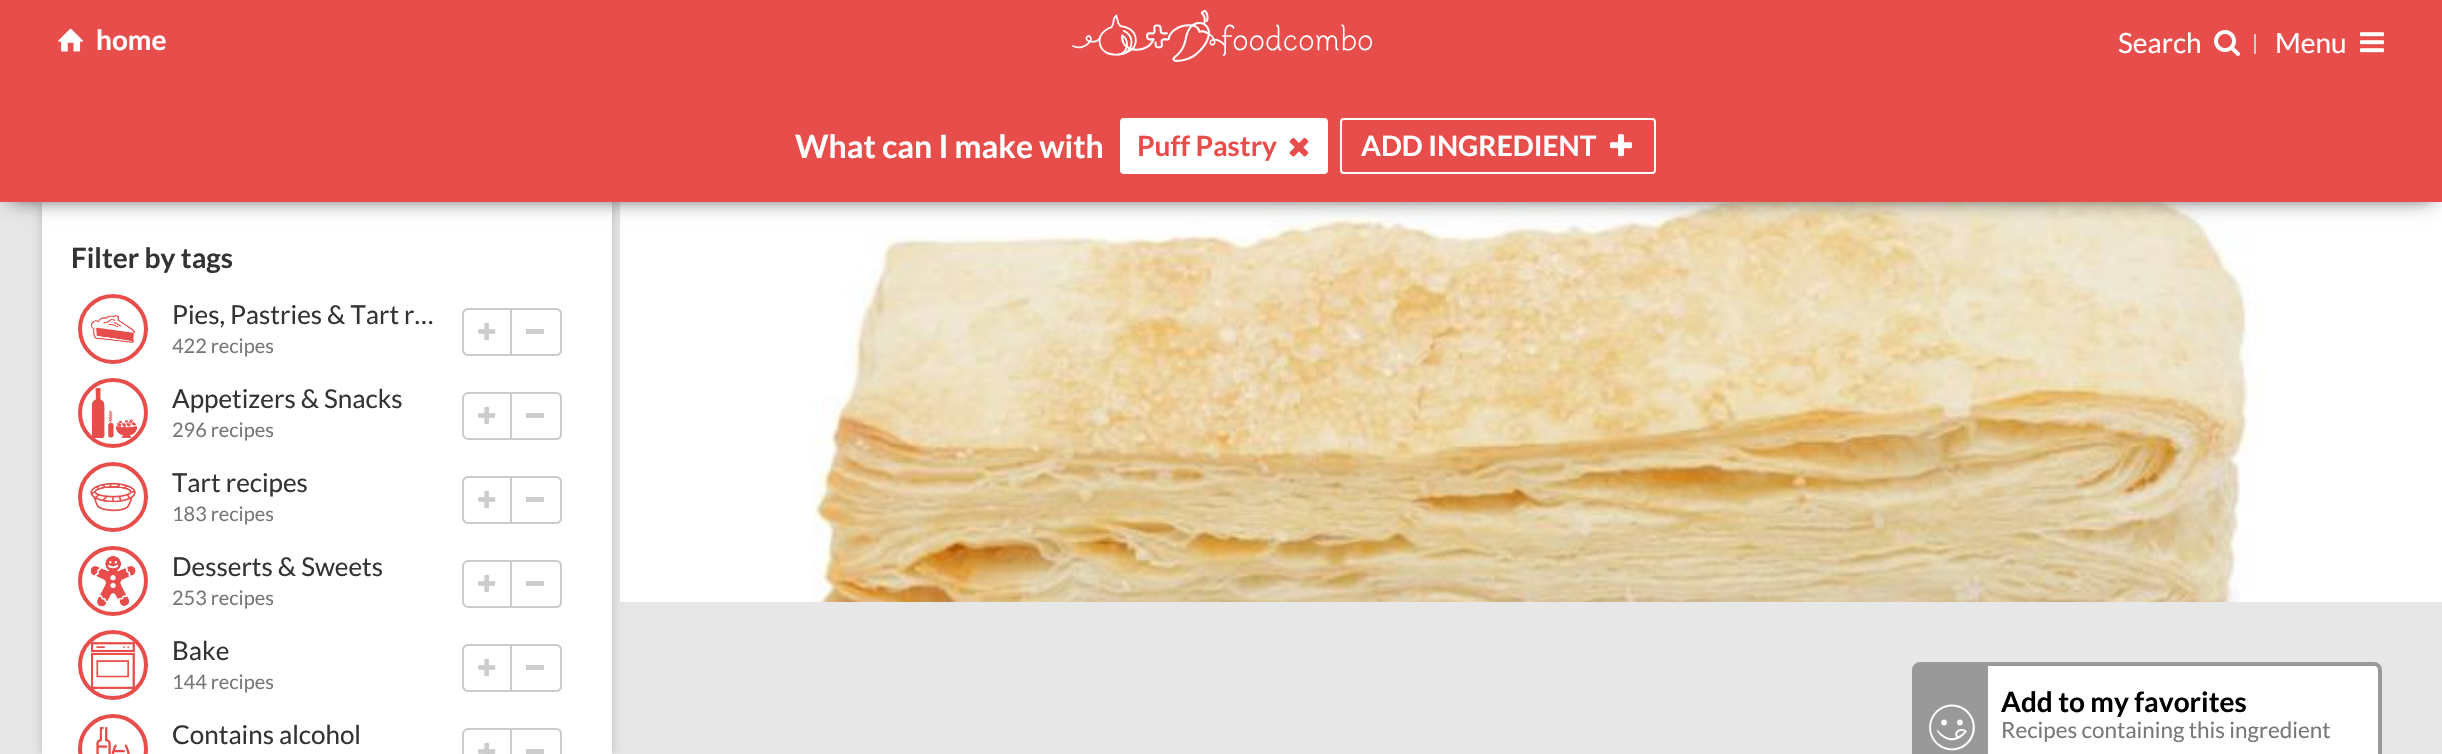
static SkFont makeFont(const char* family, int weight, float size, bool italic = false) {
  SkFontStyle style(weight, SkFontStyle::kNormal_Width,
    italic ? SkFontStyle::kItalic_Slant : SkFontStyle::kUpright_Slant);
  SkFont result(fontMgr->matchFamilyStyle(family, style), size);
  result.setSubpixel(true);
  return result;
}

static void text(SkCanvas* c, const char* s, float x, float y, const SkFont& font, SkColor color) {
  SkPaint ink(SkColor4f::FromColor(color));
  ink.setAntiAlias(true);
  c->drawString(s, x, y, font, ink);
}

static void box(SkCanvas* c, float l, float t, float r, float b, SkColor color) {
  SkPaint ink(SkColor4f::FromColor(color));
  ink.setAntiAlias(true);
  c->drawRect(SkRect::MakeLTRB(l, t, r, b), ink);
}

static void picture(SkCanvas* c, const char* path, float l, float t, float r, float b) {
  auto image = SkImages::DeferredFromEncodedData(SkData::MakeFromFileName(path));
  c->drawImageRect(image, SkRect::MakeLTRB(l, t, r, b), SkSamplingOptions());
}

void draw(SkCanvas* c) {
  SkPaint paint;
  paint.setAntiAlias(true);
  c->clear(0xffe7e7e7);
  box(c, 620, 202, 2442, 602, 0xffffffff);
  paint.setColor(0x33000000);
  paint.setMaskFilter(SkMaskFilter::MakeBlur(kNormal_SkBlurStyle, 5));
  c->drawRect(SkRect::MakeLTRB(42, 202, 612, 754), paint);
  paint.setMaskFilter(nullptr);
  box(c, 42, 202, 612, 754, 0xffffffff);
  picture(c, "img_15.png", 813, 202, 2265, 602);
  paint.setColor(0xff333333);
  paint.setMaskFilter(SkMaskFilter::MakeBlur(kNormal_SkBlurStyle, 10));
  c->drawRect(SkRect::MakeLTRB(10, 106, 2432, 198), paint);
  paint.setMaskFilter(nullptr);
  box(c, 0, 0, 2442, 202, 0xffe74d4a);
  picture(c, "img_01.png", 58, 28, 84, 52);
  SkFont face1 = makeFont("Lato", 700, 28);
  text(c, "home", 96, 50, face1, 0xffffffff);
  picture(c, "img_02.png", 1072, 10, 1372, 62);
  SkFont face2 = makeFont("Lato", 400, 28);
  text(c, "Search", 2118, 53, face2, 0xffffffff);
  picture(c, "img_03.png", 2214, 30, 2240, 56);
  box(c, 2254, 34, 2256, 54, 0xffcccccc);
  text(c, "Menu", 2275, 53, face2, 0xffffffff);
  picture(c, "img_04.png", 2360, 32, 2384, 53);
  SkFont face3 = makeFont("Lato", 700, 32);
  text(c, "What can I make with", 795, 158, face3, 0xffffffff);
  paint.setColor(0xffffffff);
  c->drawRoundRect(SkRect::MakeLTRB(1121, 119, 1327, 173), 3, 3, paint);
  paint.setStyle(SkPaint::kStroke_Style);
  paint.setStrokeWidth(2);
  c->drawRoundRect(SkRect::MakeLTRB(1121, 119, 1327, 173), 3, 3, paint);
  text(c, "Puff Pastry", 1137, 156, face1, 0xffe74d4a);
  picture(c, "img_05.png", 1289, 137, 1309, 157);
  c->drawRoundRect(SkRect::MakeLTRB(1341, 119, 1655, 173), 3, 3, paint);
  text(c, "ADD INGREDIENT", 1361, 156, face1, 0xffffffff);
  picture(c, "img_06.png", 1610, 134, 1632, 157);
  text(c, "Filter by tags", 71, 268, face1, 0xff333333);
  picture(c, "img_07.png", 91, 315, 135, 343);
  paint.setStrokeWidth(4);
  paint.setColor(0xffe74d4a);
  c->drawCircle(113, 329, 33, paint);
  SkFont face4 = makeFont("Lato", 400, 26);
  text(c, "Pies, Pastries & Tart r…", 172, 324, face4, 0xff333333);
  paint.setStyle(SkPaint::kFill_Style);
  paint.setColor(0xffcccccc);
  c->drawPath(SkPathBuilder(SkPathFillType::kEvenOdd).moveTo(468, 308).lineTo(510, 308).lineTo(510, 356).lineTo(468, 356).cubicTo(465, 356, 462, 353, 462, 350).lineTo(462, 314).cubicTo(462, 311, 465, 308, 468, 308).close().moveTo(468, 310).lineTo(510, 310).lineTo(510, 354).lineTo(468, 354).cubicTo(466, 354, 464, 352, 464, 350).lineTo(464, 314).cubicTo(464, 312, 466, 310, 468, 310).close().detach(), paint);
  picture(c, "img_08.png", 478, 322, 496, 341);
  paint.setStyle(SkPaint::kStroke_Style);
  paint.setStrokeWidth(2);
  c->drawPath(SkPathBuilder().moveTo(511, 309).lineTo(556, 309).cubicTo(559, 309, 561, 311, 561, 314).lineTo(561, 350).cubicTo(561, 353, 559, 355, 556, 355).lineTo(511, 355).close().detach(), paint);
  box(c, 526, 329, 544, 334, 0xffcccccc);
  SkFont face5 = makeFont("Lato", 400, 20);
  text(c, "422 recipes", 172, 353, face5, 0xff777777);
  picture(c, "img_09.png", 92, 388, 138, 438);
  paint.setStrokeWidth(4);
  paint.setColor(0xffe74d4a);
  c->drawCircle(113, 413, 33, paint);
  text(c, "Appetizers & Snacks", 172, 408, face4, 0xff333333);
  paint.setStyle(SkPaint::kFill_Style);
  paint.setColor(0xffcccccc);
  c->drawPath(SkPathBuilder(SkPathFillType::kEvenOdd).moveTo(468, 392).lineTo(510, 392).lineTo(510, 440).lineTo(468, 440).cubicTo(465, 440, 462, 437, 462, 434).lineTo(462, 398).cubicTo(462, 395, 465, 392, 468, 392).close().moveTo(468, 394).lineTo(510, 394).lineTo(510, 438).lineTo(468, 438).cubicTo(466, 438, 464, 436, 464, 434).lineTo(464, 398).cubicTo(464, 396, 466, 394, 468, 394).close().detach(), paint);
  picture(c, "img_08.png", 478, 406, 496, 425);
  paint.setStyle(SkPaint::kStroke_Style);
  paint.setStrokeWidth(2);
  c->drawPath(SkPathBuilder().moveTo(511, 393).lineTo(556, 393).cubicTo(559, 393, 561, 395, 561, 398).lineTo(561, 434).cubicTo(561, 437, 559, 439, 556, 439).lineTo(511, 439).close().detach(), paint);
  box(c, 526, 413, 544, 418, 0xffcccccc);
  text(c, "296 recipes", 172, 437, face5, 0xff777777);
  picture(c, "img_10.png", 90, 482, 136, 512);
  paint.setStrokeWidth(4);
  paint.setColor(0xffe74d4a);
  c->drawCircle(113, 497, 33, paint);
  text(c, "Tart recipes", 172, 492, face4, 0xff333333);
  paint.setStyle(SkPaint::kFill_Style);
  paint.setColor(0xffcccccc);
  c->drawPath(SkPathBuilder(SkPathFillType::kEvenOdd).moveTo(468, 476).lineTo(510, 476).lineTo(510, 524).lineTo(468, 524).cubicTo(465, 524, 462, 521, 462, 518).lineTo(462, 482).cubicTo(462, 479, 465, 476, 468, 476).close().moveTo(468, 478).lineTo(510, 478).lineTo(510, 522).lineTo(468, 522).cubicTo(466, 522, 464, 520, 464, 518).lineTo(464, 482).cubicTo(464, 480, 466, 478, 468, 478).close().detach(), paint);
  picture(c, "img_08.png", 478, 490, 496, 509);
  paint.setStyle(SkPaint::kStroke_Style);
  paint.setStrokeWidth(2);
  c->drawPath(SkPathBuilder().moveTo(511, 477).lineTo(556, 477).cubicTo(559, 477, 561, 479, 561, 482).lineTo(561, 518).cubicTo(561, 521, 559, 523, 556, 523).lineTo(511, 523).close().detach(), paint);
  box(c, 526, 497, 544, 502, 0xffcccccc);
  text(c, "183 recipes", 172, 521, face5, 0xff777777);
  picture(c, "img_11.png", 90, 556, 136, 607);
  paint.setStrokeWidth(4);
  paint.setColor(0xffe74d4a);
  c->drawCircle(113, 581, 33, paint);
  text(c, "Desserts & Sweets", 172, 576, face4, 0xff333333);
  paint.setStyle(SkPaint::kFill_Style);
  paint.setColor(0xffcccccc);
  c->drawPath(SkPathBuilder(SkPathFillType::kEvenOdd).moveTo(468, 560).lineTo(510, 560).lineTo(510, 608).lineTo(468, 608).cubicTo(465, 608, 462, 605, 462, 602).lineTo(462, 566).cubicTo(462, 563, 465, 560, 468, 560).close().moveTo(468, 562).lineTo(510, 562).lineTo(510, 606).lineTo(468, 606).cubicTo(466, 606, 464, 604, 464, 602).lineTo(464, 566).cubicTo(464, 564, 466, 562, 468, 562).close().detach(), paint);
  picture(c, "img_08.png", 478, 574, 496, 593);
  paint.setStyle(SkPaint::kStroke_Style);
  paint.setStrokeWidth(2);
  c->drawPath(SkPathBuilder().moveTo(511, 561).lineTo(556, 561).cubicTo(559, 561, 561, 563, 561, 566).lineTo(561, 602).cubicTo(561, 605, 559, 607, 556, 607).lineTo(511, 607).close().detach(), paint);
  box(c, 526, 581, 544, 586, 0xffcccccc);
  text(c, "253 recipes", 172, 605, face5, 0xff777777);
  picture(c, "img_12.png", 91, 642, 135, 689);
  paint.setStrokeWidth(4);
  paint.setColor(0xffe74d4a);
  c->drawCircle(113, 665, 33, paint);
  text(c, "Bake", 172, 660, face4, 0xff333333);
  paint.setStyle(SkPaint::kFill_Style);
  paint.setColor(0xffcccccc);
  c->drawPath(SkPathBuilder(SkPathFillType::kEvenOdd).moveTo(468, 644).lineTo(510, 644).lineTo(510, 692).lineTo(468, 692).cubicTo(465, 692, 462, 689, 462, 686).lineTo(462, 650).cubicTo(462, 647, 465, 644, 468, 644).close().moveTo(468, 646).lineTo(510, 646).lineTo(510, 690).lineTo(468, 690).cubicTo(466, 690, 464, 688, 464, 686).lineTo(464, 650).cubicTo(464, 648, 466, 646, 468, 646).close().detach(), paint);
  picture(c, "img_08.png", 478, 658, 496, 677);
  paint.setStyle(SkPaint::kStroke_Style);
  paint.setStrokeWidth(2);
  c->drawPath(SkPathBuilder().moveTo(511, 645).lineTo(556, 645).cubicTo(559, 645, 561, 647, 561, 650).lineTo(561, 686).cubicTo(561, 689, 559, 691, 556, 691).lineTo(511, 691).close().detach(), paint);
  box(c, 526, 665, 544, 670, 0xffcccccc);
  text(c, "144 recipes", 172, 689, face5, 0xff777777);
  picture(c, "img_13.png", 96, 727, 130, 754);
  paint.setStrokeWidth(4);
  paint.setColor(0xffe74d4a);
  c->drawCircle(113, 749, 33, paint);
  text(c, "Contains alcohol", 172, 744, face4, 0xff333333);
  paint.setStyle(SkPaint::kFill_Style);
  paint.setColor(0xffcccccc);
  c->drawPath(SkPathBuilder(SkPathFillType::kEvenOdd).moveTo(468, 728).lineTo(510, 728).lineTo(510, 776).lineTo(468, 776).cubicTo(465, 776, 462, 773, 462, 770).lineTo(462, 734).cubicTo(462, 731, 465, 728, 468, 728).close().moveTo(468, 730).lineTo(510, 730).lineTo(510, 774).lineTo(468, 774).cubicTo(466, 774, 464, 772, 464, 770).lineTo(464, 734).cubicTo(464, 732, 466, 730, 468, 730).close().detach(), paint);
  picture(c, "img_14.png", 478, 742, 496, 754);
  paint.setStyle(SkPaint::kStroke_Style);
  paint.setStrokeWidth(2);
  c->drawPath(SkPathBuilder().moveTo(511, 729).lineTo(556, 729).cubicTo(559, 729, 561, 731, 561, 734).lineTo(561, 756).cubicTo(561, 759, 559, 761, 556, 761).lineTo(511, 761).close().detach(), paint);
  box(c, 526, 749, 544, 754, 0xffcccccc);
  paint.setStyle(SkPaint::kFill_Style);
  paint.setColor(0xffffffff);
  c->drawPath(SkPathBuilder().moveTo(1920, 662).lineTo(2374, 662).cubicTo(2378.5f, 662, 2382, 665.5f, 2382, 670).lineTo(2382, 754).lineTo(1912, 754).lineTo(1912, 670).cubicTo(1912, 665.5f, 1915.5f, 662, 1920, 662).close().detach(), paint);
  paint.setStyle(SkPaint::kStroke_Style);
  paint.setStrokeWidth(4);
  paint.setColor(0xff999999);
  c->drawRoundRect(SkRect::MakeLTRB(1914, 664, 2380, 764), 6, 6, paint);
  box(c, 1916, 666, 1988, 754, 0xff999999);
  picture(c, "img_16.png", 1929, 704, 1975, 751);
  text(c, "Add to my favorites", 2001, 712, face1, 0xff000000);
  SkFont face6 = makeFont("Lato", 400, 22.4f);
  text(c, "Recipes containing this ingredient", 2001, 738, face6, 0xff777777);
}
